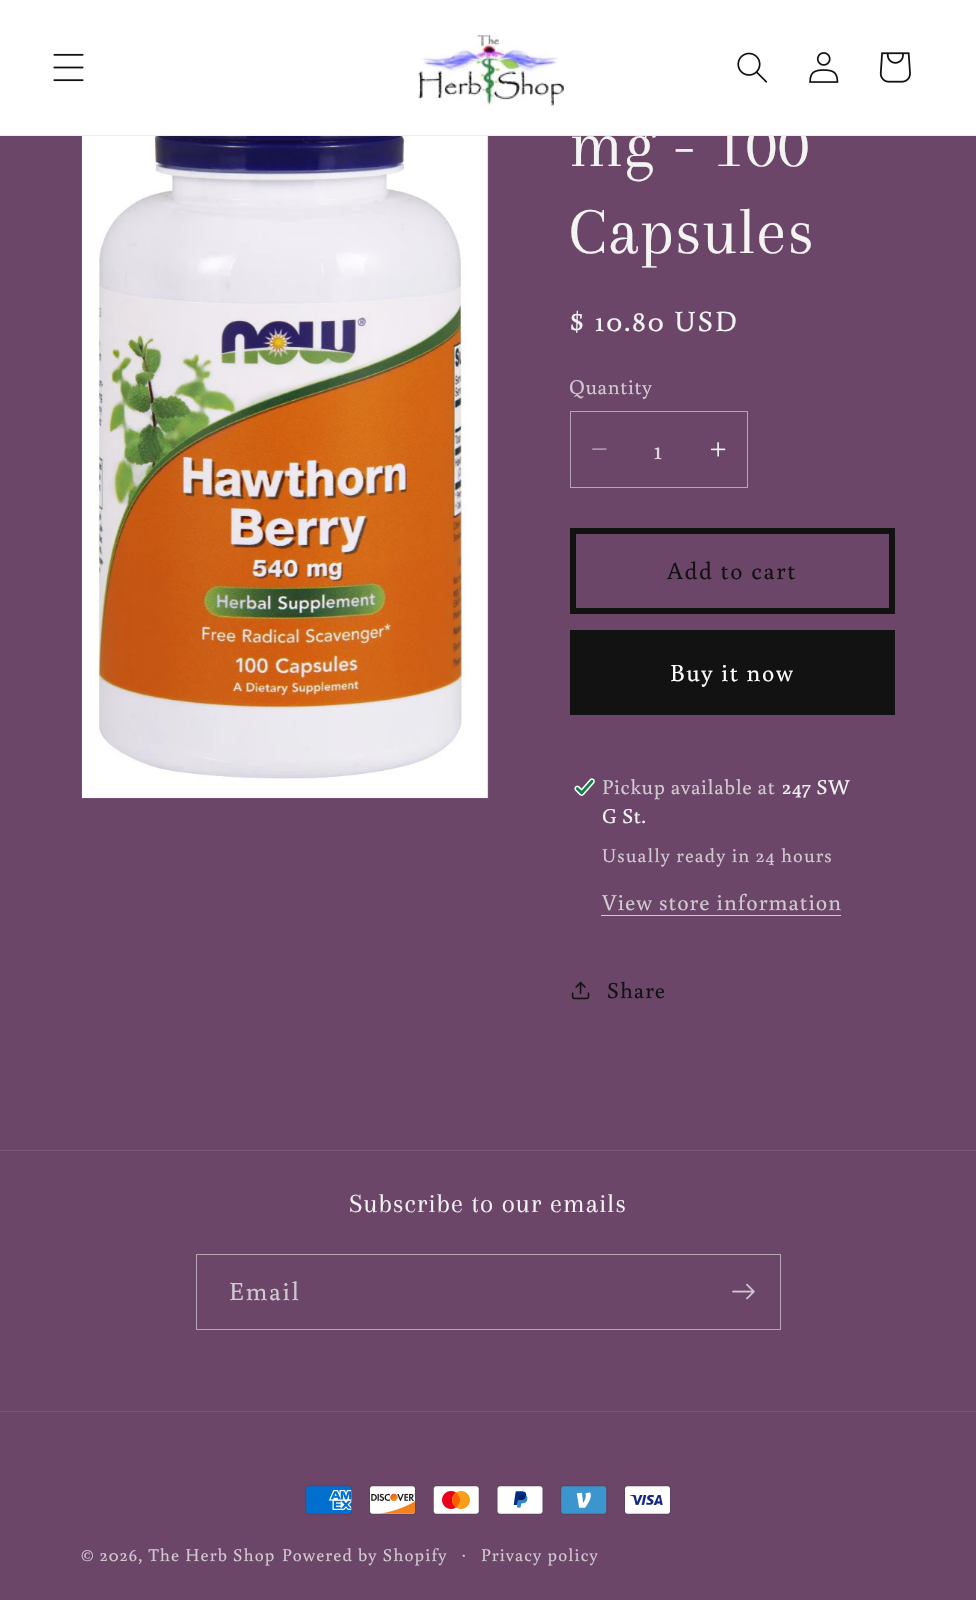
static SkFont makeFont(const char* family, int weight, float size, bool italic = false) {
  SkFontStyle style(weight, SkFontStyle::kNormal_Width,
    italic ? SkFontStyle::kItalic_Slant : SkFontStyle::kUpright_Slant);
  SkFont result(fontMgr->matchFamilyStyle(family, style), size);
  result.setSubpixel(true);
  return result;
}

static void text(SkCanvas* c, const char* s, float x, float y, const SkFont& font, SkColor color) {
  SkPaint ink(SkColor4f::FromColor(color));
  ink.setAntiAlias(true);
  c->drawString(s, x, y, font, ink);
}

static void spacedText(SkCanvas* c, const char* s, float x, float y, const SkFont& font, const SkPaint& ink, float letter, float word) {
  std::vector<SkGlyphID> glyphs(font.countText(s, strlen(s), SkTextEncoding::kUTF8));
  std::vector<float> xs(glyphs.size());
  font.textToGlyphs(s, strlen(s), SkTextEncoding::kUTF8, glyphs);
  font.getXPos(glyphs, xs, x);
  float extra = 0;
  for (size_t i = 0; i < glyphs.size(); i++) {
    xs[i] += extra;
    extra += letter + word * (glyphs[i] == font.unicharToGlyph(' '));
  }
  c->drawTextBlob(SkTextBlob::MakeFromPosHGlyphs(glyphs, xs, y, font), 0, 0, ink);
}

static void box(SkCanvas* c, float l, float t, float r, float b, SkColor color) {
  SkPaint ink(SkColor4f::FromColor(color));
  ink.setAntiAlias(true);
  c->drawRect(SkRect::MakeLTRB(l, t, r, b), ink);
}

static void picture(SkCanvas* c, const char* path, float l, float t, float r, float b) {
  auto image = SkImages::DeferredFromEncodedData(SkData::MakeFromFileName(path));
  c->drawImageRect(image, SkRect::MakeLTRB(l, t, r, b), SkSamplingOptions());
}

void draw(SkCanvas* c) {
  SkPaint paint;
  paint.setAntiAlias(true);
  c->clear(0xff6b4669);
  paint.setStyle(SkPaint::kStroke_Style);
  paint.setStrokeWidth(1);
  paint.setColor(0xff724f70);
  c->drawRect(SkRect::MakeLTRB(81.5f, 49.5f, 488.5f, 798.5f), paint);
  SkFont face1 = makeFont("Arapey", 400, 67.5f);
  paint.setStyle(SkPaint::kFill_Style);
  paint.setColor(0xfff3f3f3);
  spacedText(c, "mg - 100", 569, 166, face1, paint, 1, 0);
  box(c, 0, 0, 976, 135, 0xffffffff);
  box(c, 0, 135, 976, 136, 0xffececec);
  picture(c, "img_01.png", 53, 53, 84, 82);
  picture(c, "img_02.png", 418, 33, 564, 108);
  picture(c, "img_03.png", 737, 52, 768, 83);
  picture(c, "img_04.png", 809, 52, 839, 83);
  picture(c, "img_05.png", 879, 52, 911, 83);
  picture(c, "img_06.png", 82, 136, 488, 798);
  spacedText(c, "Capsules", 569, 253, face1, paint, 1, 0);
  SkFont face2 = makeFont("Buenard", 400, 29.25f);
  spacedText(c, "$ 10.80 USD", 569, 331, face2, paint, 2.1f, 0);
  SkFont face3 = makeFont("Buenard", 400, 21);
  paint.setColor(0xffd1c8d1);
  spacedText(c, "Quantity", 569, 394, face3, paint, 0.6f, 0);
  picture(c, "img_07.png", 592, 448, 607, 450);
  picture(c, "img_08.png", 710, 442, 726, 457);
  paint.setStyle(SkPaint::kStroke_Style);
  paint.setColor(0xffb6a5b5);
  c->drawRect(SkRect::MakeLTRB(570.5f, 411.5f, 747.5f, 487.5f), paint);
  SkFont face4 = makeFont("Buenard", 400, 26);
  text(c, "1", 654, 459, face4, 0xffdfd9de);
  paint.setStrokeWidth(6);
  paint.setColor(0xff121212);
  c->drawRect(SkRect::MakeLTRB(573, 531, 892, 611), paint);
  SkFont face5 = makeFont("Buenard", 400, 24.5f);
  paint.setStyle(SkPaint::kFill_Style);
  spacedText(c, "Add to cart", 667, 579, face5, paint, 1.6f, 0);
  box(c, 570, 630, 895, 715, 0xff121212);
  paint.setColor(0xffffffff);
  spacedText(c, "Buy it now", 670, 681, face5, paint, 1.6f, 0);
  picture(c, "img_09.png", 574, 778, 595, 796);
  paint.setColor(0xffd1c8d1);
  spacedText(c, "Pickup available at", 602, 794, face3, paint, 0.6f, 0);
  paint.setColor(0xfff3f3f3);
  spacedText(c, "247 SW", 782, 794, face3, paint, 0.6f, 0);
  spacedText(c, "G St.", 602, 823, face3, paint, 0.6f, 0);
  SkFont face6 = makeFont("Buenard", 400, 19.5f);
  paint.setColor(0xffd1c8d1);
  spacedText(c, "Usually ready in 24 hours", 602, 862, face6, paint, 1.1f, 0);
  SkFont face7 = makeFont("Buenard", 400, 22.75f);
  spacedText(c, "View store information", 602, 910, face7, paint, 1, 0);
  box(c, 601, 915, 841, 916, 0xffd1c8d1);
  picture(c, "img_10.png", 571, 981, 590, 1000);
  paint.setColor(0xff121212);
  spacedText(c, "Share", 607, 998, face7, paint, 1, 0);
  box(c, 0, 1150, 976, 1151, 0xff765474);
  SkFont face8 = makeFont("Arapey", 400, 27);
  paint.setColor(0xfff3f3f3);
  spacedText(c, "Subscribe to our emails", 349, 1212, face8, paint, 1, 0);
  paint.setStyle(SkPaint::kStroke_Style);
  paint.setStrokeWidth(1);
  paint.setColor(0xffb6a5b5);
  c->drawRect(SkRect::MakeLTRB(196.5f, 1254.5f, 780.5f, 1329.5f), paint);
  paint.setStyle(SkPaint::kFill_Style);
  paint.setColor(0xffd1c8d1);
  spacedText(c, "Email", 229, 1300, face4, paint, 1.6f, 0);
  picture(c, "img_11.png", 732, 1283, 755, 1300);
  box(c, 0, 1411, 976, 1412, 0xff765474);
  picture(c, "img_12.png", 305, 1485, 352, 1515);
  picture(c, "img_13.png", 369, 1485, 416, 1515);
  picture(c, "img_14.png", 433, 1485, 480, 1515);
  picture(c, "img_15.png", 496, 1485, 544, 1515);
  picture(c, "img_16.png", 560, 1485, 608, 1515);
  picture(c, "img_17.png", 624, 1485, 671, 1515);
  SkFont face9 = makeFont("Buenard", 400, 17.9f);
  spacedText(c, "© 2026, The Herb Shop", 81, 1561, face9, paint, 1.1f, 0);
  spacedText(c, "Powered by Shopify", 282, 1561, face9, paint, 1.1f, 0);
  spacedText(c, "·", 461, 1561, face6, paint, 1.1f, 0);
  spacedText(c, "Privacy policy", 481, 1561, face9, paint, 1.1f, 0);
}
